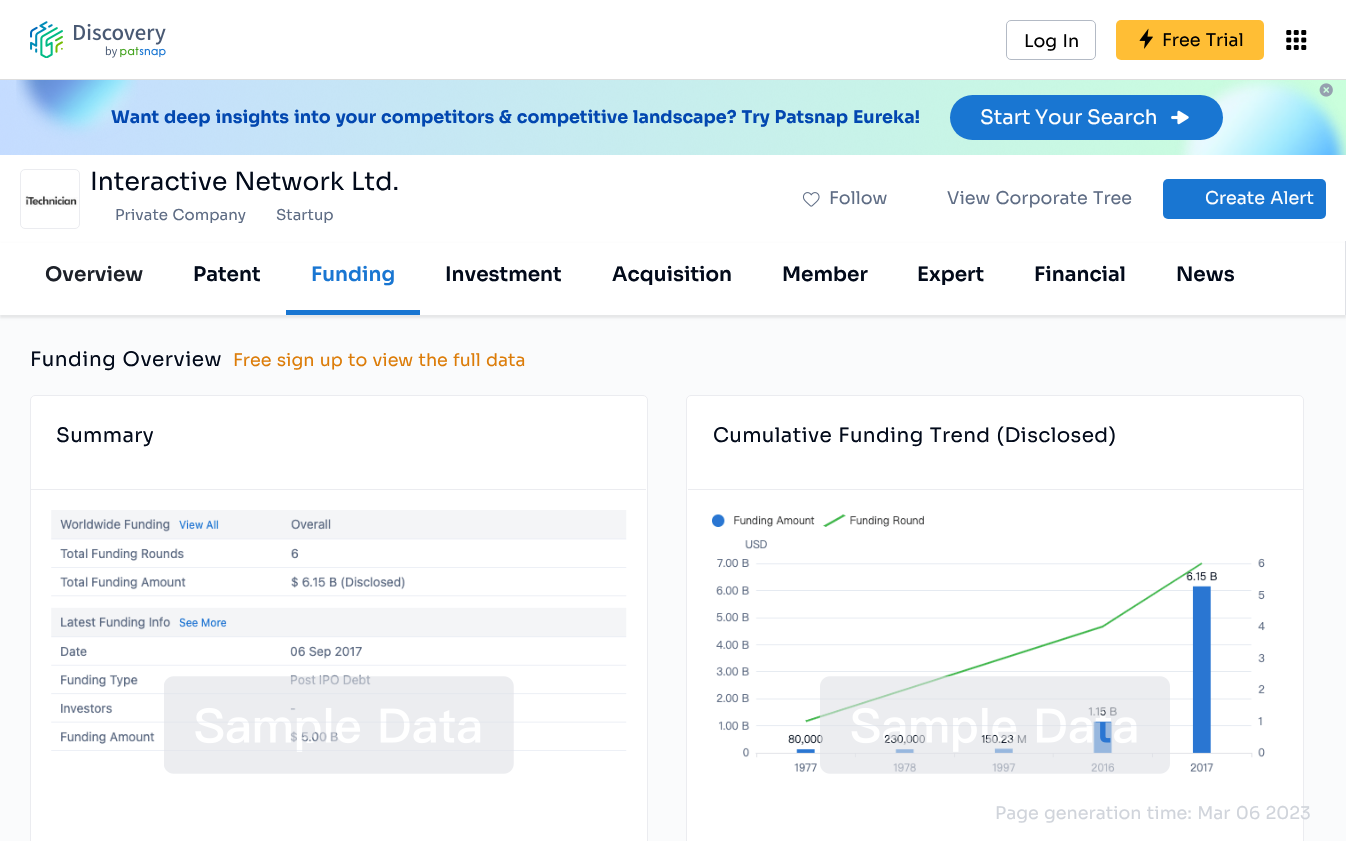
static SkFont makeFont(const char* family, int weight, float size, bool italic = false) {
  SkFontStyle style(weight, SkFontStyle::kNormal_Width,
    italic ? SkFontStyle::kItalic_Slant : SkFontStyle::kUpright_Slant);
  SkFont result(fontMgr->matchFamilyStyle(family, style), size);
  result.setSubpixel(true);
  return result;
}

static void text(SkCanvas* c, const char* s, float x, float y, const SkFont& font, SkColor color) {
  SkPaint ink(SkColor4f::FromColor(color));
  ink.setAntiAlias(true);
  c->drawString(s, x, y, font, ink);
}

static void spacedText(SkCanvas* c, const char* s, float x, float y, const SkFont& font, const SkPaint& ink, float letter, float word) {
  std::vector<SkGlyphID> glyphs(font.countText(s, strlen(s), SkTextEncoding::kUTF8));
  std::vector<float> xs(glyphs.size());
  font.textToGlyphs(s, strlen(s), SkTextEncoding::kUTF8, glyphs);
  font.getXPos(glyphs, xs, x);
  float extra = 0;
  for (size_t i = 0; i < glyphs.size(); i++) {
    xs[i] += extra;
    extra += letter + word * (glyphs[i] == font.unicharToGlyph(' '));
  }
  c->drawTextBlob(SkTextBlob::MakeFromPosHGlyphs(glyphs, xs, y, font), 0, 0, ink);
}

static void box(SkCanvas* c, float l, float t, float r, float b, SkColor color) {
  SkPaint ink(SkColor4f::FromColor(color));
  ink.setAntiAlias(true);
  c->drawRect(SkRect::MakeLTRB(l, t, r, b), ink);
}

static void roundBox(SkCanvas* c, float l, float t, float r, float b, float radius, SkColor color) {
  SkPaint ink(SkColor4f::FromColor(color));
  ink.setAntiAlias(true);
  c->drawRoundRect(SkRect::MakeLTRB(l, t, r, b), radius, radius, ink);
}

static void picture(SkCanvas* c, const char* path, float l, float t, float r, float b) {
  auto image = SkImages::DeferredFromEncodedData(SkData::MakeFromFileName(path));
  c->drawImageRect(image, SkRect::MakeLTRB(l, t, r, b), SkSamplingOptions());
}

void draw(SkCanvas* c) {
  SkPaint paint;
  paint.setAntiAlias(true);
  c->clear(0xffffffff);
  box(c, 0, 79, 1346, 80, 0xffdddddd);
  picture(c, "img_01.png", 30, 21, 166, 58);
  paint.setStyle(SkPaint::kStroke_Style);
  paint.setStrokeWidth(1);
  paint.setColor(0xffb3bac5);
  c->drawRoundRect(SkRect::MakeLTRB(1006.5f, 20.5f, 1095.5f, 59.5f), 4.5f, 4.5f, paint);
  SkFont face1 = makeFont("Sora", 400, 17.5f);
  paint.setStyle(SkPaint::kFill_Style);
  paint.setColor(0xff000000);
  spacedText(c, "Log In", 1024, 47, face1, paint, 0, 1.25f);
  roundBox(c, 1116, 20, 1264, 60, 5, 0xffffbe35);
  picture(c, "img_02.png", 1139, 28, 1153, 49);
  spacedText(c, "Free Trial", 1162, 46, face1, paint, 0, 1.25f);
  picture(c, "img_03.png", 1286, 30, 1307, 50);
  picture(c, "img_04.png", 0, 80, 1346, 155);
  picture(c, "img_05.png", 1319, 83, 1333, 97);
  SkFont face2 = makeFont("Sora", 700, 17.5f);
  paint.setColor(0xff0247b0);
  spacedText(c, "Want deep insights into your competitors & competitive landscape? Try Patsnap Eureka!", 111, 123, face2, paint, 0, 1.25f);
  roundBox(c, 950, 95, 1223, 140, 22.5f, 0xff1976d2);
  SkFont face3 = makeFont("Sora", 400, 20);
  text(c, "Start Your Search", 980, 124, face3, 0xffffffff);
  picture(c, "img_06.png", 1171, 110, 1189, 125);
  paint.setStyle(SkPaint::kStroke_Style);
  paint.setColor(0xffebecf0);
  c->drawRoundRect(SkRect::MakeLTRB(20.5f, 169.5f, 79.5f, 228.5f), 4.5f, 4.5f, paint);
  picture(c, "img_07.png", 25, 195, 78, 207);
  SkFont face4 = makeFont("Sora", 400, 25);
  paint.setStyle(SkPaint::kFill_Style);
  paint.setColor(0xff020a1a);
  spacedText(c, "Interactive Network Ltd.", 90, 190, face4, paint, 0, 1.25f);
  SkFont face5 = makeFont("Sora", 400, 15);
  paint.setColor(0xff5e6c84);
  spacedText(c, "Private Company", 115, 220, face5, paint, 0, 1.25f);
  text(c, "Startup", 276, 220, face5, 0xff5e6c84);
  picture(c, "img_08.png", 802, 192, 820, 207);
  text(c, "Follow", 829, 204, face1, 0xff5e6c84);
  spacedText(c, "View Corporate Tree", 947, 204, face1, paint, 0, 1.25f);
  roundBox(c, 1163, 179, 1326, 219, 5, 0xff1976d2);
  paint.setColor(0xffffffff);
  spacedText(c, "Create Alert", 1205, 204, face1, paint, 0, 1.25f);
  box(c, 0, 315, 1346, 841, 0xfffafbfc);
  paint.setColor(0x14000000);
  paint.setMaskFilter(SkMaskFilter::MakeBlur(kNormal_SkBlurStyle, 1));
  c->drawRect(SkRect::MakeLTRB(0, 244, 1346, 318), paint);
  paint.setMaskFilter(nullptr);
  box(c, 0, 243, 1345, 315, 0xffffffff);
  box(c, 1345, 241, 1346, 315, 0xffdfe1e6);
  SkFont face6 = makeFont("Sora", 600, 20);
  text(c, "Overview", 45, 281, face6, 0xff1d2129);
  text(c, "Patent", 193, 281, face6, 0xff020a1a);
  box(c, 286, 310, 420, 315, 0xff1976d2);
  text(c, "Funding", 311, 281, face6, 0xff1976d2);
  text(c, "Investment", 445, 281, face6, 0xff020a1a);
  text(c, "Acquisition", 612, 281, face6, 0xff020a1a);
  text(c, "Member", 782, 281, face6, 0xff020a1a);
  text(c, "Expert", 917, 281, face6, 0xff020a1a);
  text(c, "Financial", 1034, 281, face6, 0xff020a1a);
  text(c, "News", 1176, 281, face6, 0xff020a1a);
  paint.setColor(0xff020a1a);
  spacedText(c, "Funding Overview", 30, 366, face3, paint, 0.5f, 1.25f);
  paint.setColor(0xffdc7c08);
  spacedText(c, "Free sign up to view the full data", 233, 366, face1, paint, 0, 1.25f);
  paint.setColor(0xffffffff);
  c->drawPath(SkPathBuilder().moveTo(35, 395).lineTo(643, 395).cubicTo(646, 395, 648, 397, 648, 400).lineTo(648, 841).lineTo(30, 841).lineTo(30, 400).cubicTo(30, 397, 32, 395, 35, 395).close().detach(), paint);
  paint.setStyle(SkPaint::kStroke_Style);
  paint.setColor(0xffebecf0);
  c->drawRoundRect(SkRect::MakeLTRB(30.5f, 395.5f, 647.5f, 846.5f), 4.5f, 4.5f, paint);
  box(c, 31, 489, 646, 490, 0xffebecf0);
  paint.setStyle(SkPaint::kFill_Style);
  paint.setColor(0xff020a1a);
  spacedText(c, "Summary", 56, 442, face3, paint, 0.35f, 0);
  picture(c, "img_09.png", 51, 510, 627, 751);
  picture(c, "img_10.png", 164, 676, 514, 774);
  paint.setColor(0xffffffff);
  c->drawPath(SkPathBuilder().moveTo(691, 395).lineTo(1299, 395).cubicTo(1302, 395, 1304, 397, 1304, 400).lineTo(1304, 841).lineTo(686, 841).lineTo(686, 400).cubicTo(686, 397, 688, 395, 691, 395).close().detach(), paint);
  paint.setStyle(SkPaint::kStroke_Style);
  paint.setColor(0xffebecf0);
  c->drawRoundRect(SkRect::MakeLTRB(686.5f, 395.5f, 1303.5f, 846.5f), 4.5f, 4.5f, paint);
  box(c, 688, 489, 1303, 490, 0xffebecf0);
  paint.setStyle(SkPaint::kFill_Style);
  paint.setColor(0xff020a1a);
  spacedText(c, "Cumulative Funding Trend (Disclosed)", 713, 442, face3, paint, 0.35f, 1.25f);
  picture(c, "img_11.png", 712, 514, 1265, 773);
  picture(c, "img_12.png", 820, 676, 1170, 774);
  paint.setColor(0xffd0d4db);
  spacedText(c, "Page generation time: Mar 06 2023", 995, 819, face1, paint, 0, 1.25f);
}
